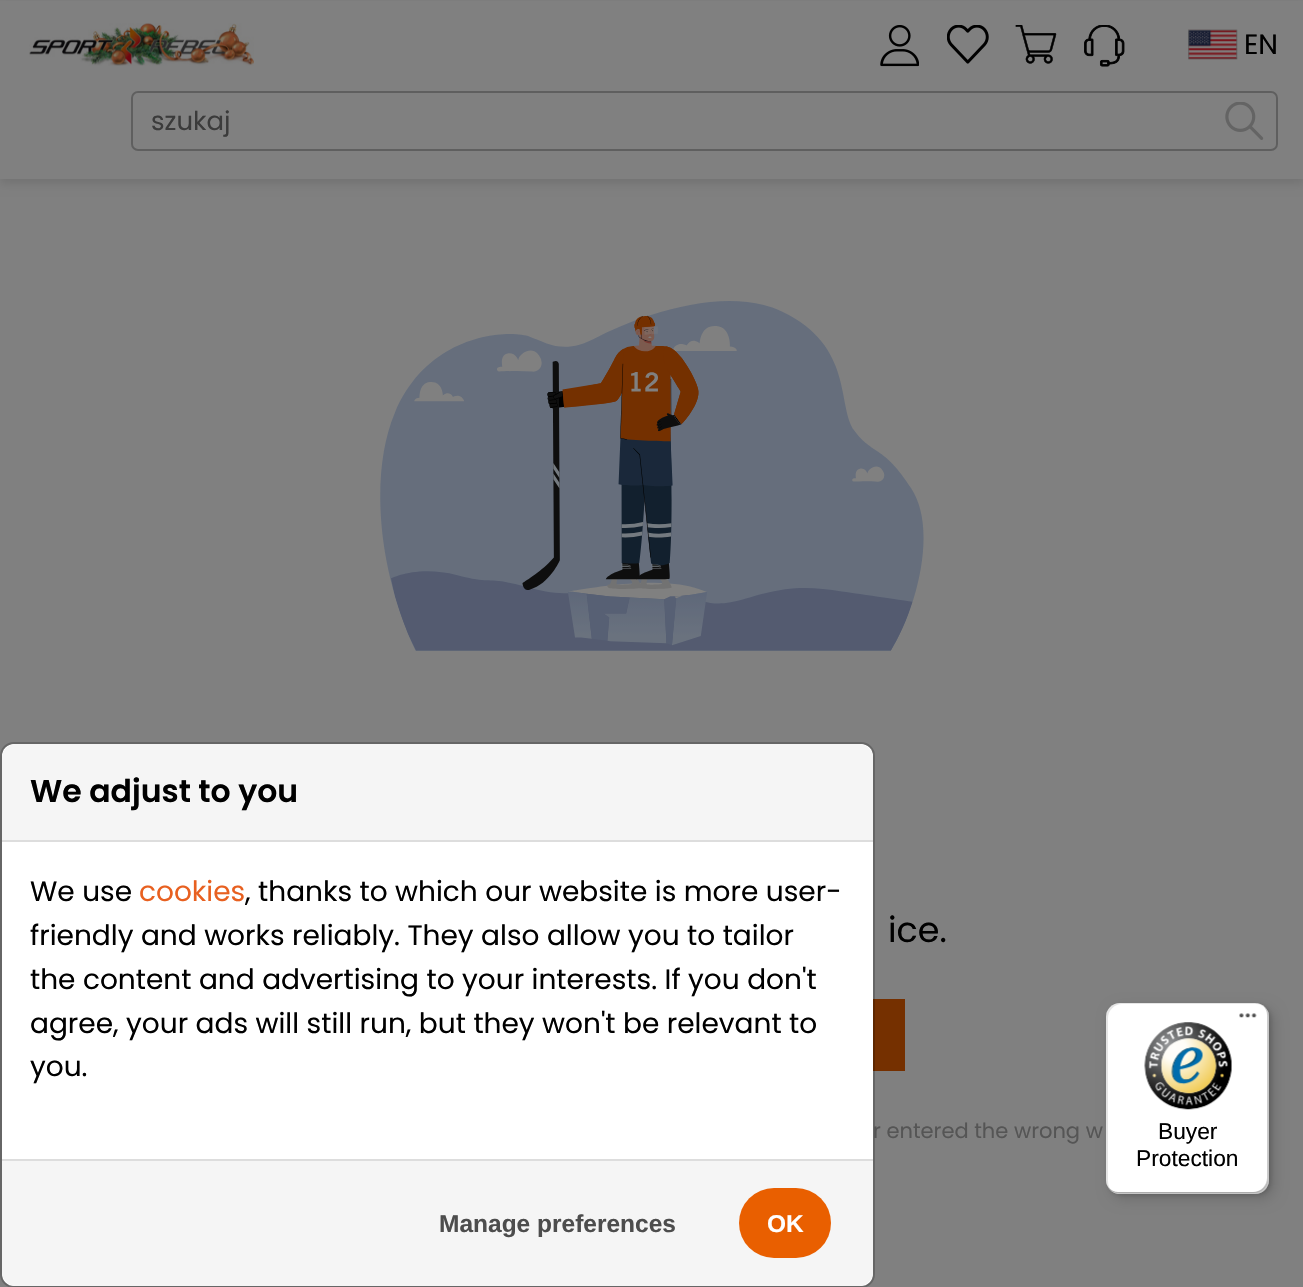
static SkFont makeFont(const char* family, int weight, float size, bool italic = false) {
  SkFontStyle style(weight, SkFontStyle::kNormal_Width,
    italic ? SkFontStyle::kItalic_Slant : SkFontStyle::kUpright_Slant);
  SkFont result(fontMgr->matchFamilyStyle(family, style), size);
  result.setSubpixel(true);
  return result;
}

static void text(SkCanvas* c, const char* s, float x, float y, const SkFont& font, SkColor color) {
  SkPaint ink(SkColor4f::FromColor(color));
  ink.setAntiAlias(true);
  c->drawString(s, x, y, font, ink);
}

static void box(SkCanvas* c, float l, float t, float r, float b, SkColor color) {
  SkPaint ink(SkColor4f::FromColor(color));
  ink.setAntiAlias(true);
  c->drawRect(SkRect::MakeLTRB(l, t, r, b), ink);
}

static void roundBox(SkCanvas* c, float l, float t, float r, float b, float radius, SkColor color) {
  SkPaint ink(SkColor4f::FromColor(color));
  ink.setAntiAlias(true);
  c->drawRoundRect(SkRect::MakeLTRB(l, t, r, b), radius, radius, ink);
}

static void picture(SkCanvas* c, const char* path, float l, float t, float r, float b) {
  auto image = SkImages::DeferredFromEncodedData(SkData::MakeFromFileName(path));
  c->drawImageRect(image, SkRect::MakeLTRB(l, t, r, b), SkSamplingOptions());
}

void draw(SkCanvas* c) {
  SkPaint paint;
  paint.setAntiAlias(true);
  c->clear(0xff808080);
  paint.setColor(0x1a000000);
  paint.setMaskFilter(SkMaskFilter::MakeBlur(kNormal_SkBlurStyle, 4.5f));
  c->drawRect(SkRect::MakeLTRB(0, 5, 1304, 184), paint);
  paint.setMaskFilter(nullptr);
  box(c, 0, 1, 1303, 179, 0xff808080);
  picture(c, "img_01.png", 29, 23, 254, 66);
  picture(c, "img_02.png", 880, 25, 919, 67);
  picture(c, "img_03.png", 947, 25, 989, 64);
  picture(c, "img_04.png", 1015, 25, 1057, 64);
  picture(c, "img_05.png", 1084, 25, 1125, 67);
  picture(c, "img_06.png", 1188, 29, 1238, 60);
  SkFont face1 = makeFont("Poppins", 400, 28);
  text(c, "EN", 1244, 54, face1, 0xff000000);
  paint.setStyle(SkPaint::kStroke_Style);
  paint.setStrokeWidth(2);
  paint.setColor(0xff5f5f5f);
  c->drawRoundRect(SkRect::MakeLTRB(132, 92, 1277, 150), 6, 6, paint);
  SkFont face2 = makeFont("Poppins", 400, 26);
  text(c, "szukaj", 151, 130, face2, 0xff3b3b3b);
  picture(c, "img_07.png", 1225, 102, 1264, 140);
  picture(c, "img_08.png", 380, 301, 924, 651);
  SkFont face3 = makeFont("Poppins", 400, 35);
  text(c, "ice.", 888, 942, face3, 0xff000000);
  box(c, 873, 999, 905, 1071, 0xff753000);
  SkFont face4 = makeFont("Poppins", 400, 21);
  text(c, "r entered the wrong w", 873, 1138, face4, 0xff555555);
  roundBox(c, 2, 744, 873, 1286, 12, 0xffffffff);
  paint.setColor(0x33000000);
  c->drawRoundRect(SkRect::MakeLTRB(1, 743, 874, 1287), 13, 13, paint);
  paint.setStyle(SkPaint::kFill_Style);
  paint.setColor(0xfff5f5f5);
  c->drawPath(SkPathBuilder().moveTo(16, 744).lineTo(859, 744).cubicTo(866.5f, 744, 873, 750.5f, 873, 758).lineTo(873, 842).lineTo(2, 842).lineTo(2, 758).cubicTo(2, 750.5f, 8.5f, 744, 16, 744).close().detach(), paint);
  box(c, 2, 840, 873, 842, 0xffdddddd);
  SkFont face5 = makeFont("Poppins", 600, 31.5f);
  text(c, "We adjust to you", 30, 802, face5, 0xff000000);
  text(c, "We use", 30, 901, face1, 0xff000000);
  text(c, "cookies", 139, 901, face1, 0xffe86020);
  text(c, ", thanks to which our website is more user-", 245, 901, face1, 0xff000000);
  text(c, "friendly and works reliably. They also allow you to tailor", 30, 945, face1, 0xff000000);
  text(c, "the content and advertising to your interests. If you don't", 30, 989, face1, 0xff000000);
  text(c, "agree, your ads will still run, but they won't be relevant to", 30, 1033, face1, 0xff000000);
  text(c, "you.", 30, 1076, face1, 0xff000000);
  c->drawPath(SkPathBuilder().moveTo(2, 1159).lineTo(873, 1159).lineTo(873, 1272).cubicTo(873, 1279.5f, 866.5f, 1286, 859, 1286).lineTo(16, 1286).cubicTo(8.5f, 1286, 2, 1279.5f, 2, 1272).close().detach(), paint);
  box(c, 2, 1159, 873, 1161, 0xffdddddd);
  SkFont face6 = makeFont("Liberation Sans", 700, 24.5f);
  text(c, "Manage preferences", 439, 1232, face6, 0xff4d4d4d);
  roundBox(c, 739, 1188, 831, 1258, 35, 0xffe95f00);
  text(c, "OK", 767, 1232, face6, 0xffffffff);
  paint.setColor(0x26000000);
  paint.setMaskFilter(SkMaskFilter::MakeBlur(kNormal_SkBlurStyle, 7));
  c->drawRoundRect(SkRect::MakeLTRB(1111, 1008, 1274, 1199), 14, 14, paint);
  paint.setMaskFilter(nullptr);
  paint.setMaskFilter(SkMaskFilter::MakeBlur(kNormal_SkBlurStyle, 2));
  c->drawRoundRect(SkRect::MakeLTRB(1108, 1005, 1271, 1195), 14, 14, paint);
  paint.setMaskFilter(nullptr);
  roundBox(c, 1106, 1003, 1269, 1194, 14, 0xffffffff);
  paint.setColor(0x1a000000);
  c->drawPath(SkPathBuilder().moveTo(1122, 1004).lineTo(1256, 1004).cubicTo(1260, 1004, 1264, 1006, 1266, 1009).cubicTo(1264, 1005, 1260, 1003, 1255, 1003).lineTo(1120, 1003).cubicTo(1112, 1003, 1106, 1009, 1106, 1017).lineTo(1106, 1180).cubicTo(1106, 1186, 1109, 1190, 1114, 1193).cubicTo(1110, 1190, 1108, 1186, 1108, 1181).lineTo(1108, 1018).cubicTo(1108, 1011, 1114, 1004, 1122, 1004).close().detach(), paint);
  paint.setColor(0x33000000);
  c->drawPath(SkPathBuilder().moveTo(1108, 1187).cubicTo(1110, 1191, 1115, 1194, 1120, 1194).lineTo(1255, 1194).cubicTo(1263, 1194, 1269, 1188, 1269, 1180).lineTo(1269, 1017).cubicTo(1269, 1013, 1267, 1009, 1264, 1007).cubicTo(1266, 1009, 1267, 1012, 1267, 1015).lineTo(1267, 1178).cubicTo(1267, 1185, 1261, 1192, 1253, 1192).lineTo(1118, 1192).cubicTo(1114, 1192, 1111, 1190, 1108, 1187).close().detach(), paint);
  paint.setColor(0x33323232);
  c->drawPath(SkPathBuilder().moveTo(1107, 1186).cubicTo(1110, 1191, 1114, 1194, 1120, 1194).lineTo(1255, 1194).cubicTo(1263, 1194, 1269, 1188, 1269, 1180).lineTo(1269, 1017).cubicTo(1269, 1012, 1267, 1008, 1263, 1006).cubicTo(1266, 1008, 1268, 1012, 1268, 1016).lineTo(1268, 1178).cubicTo(1268, 1186, 1261, 1192, 1254, 1192).lineTo(1119, 1192).cubicTo(1114, 1192, 1110, 1190, 1107, 1186).close().detach(), paint);
  paint.setColor(0x4dffffff);
  c->drawPath(SkPathBuilder().moveTo(1109, 1188).cubicTo(1111, 1192, 1115, 1194, 1120, 1194).lineTo(1255, 1194).cubicTo(1263, 1194, 1269, 1188, 1269, 1180).lineTo(1269, 1017).cubicTo(1269, 1013, 1268, 1010, 1265, 1008).cubicTo(1267, 1010, 1268, 1013, 1268, 1016).lineTo(1268, 1179).cubicTo(1268, 1186, 1262, 1193, 1254, 1193).lineTo(1119, 1193).cubicTo(1115, 1193, 1111, 1191, 1109, 1188).close().detach(), paint);
  picture(c, "img_09.png", 1239, 1013, 1257, 1018);
  picture(c, "img_10.png", 1144, 1022, 1232, 1110);
  SkFont face7 = makeFont("Liberation Sans", 400, 22.75f);
  text(c, "Buyer", 1158, 1139, face7, 0xff000000);
  text(c, "Protection", 1136, 1166, face7, 0xff000000);
}
